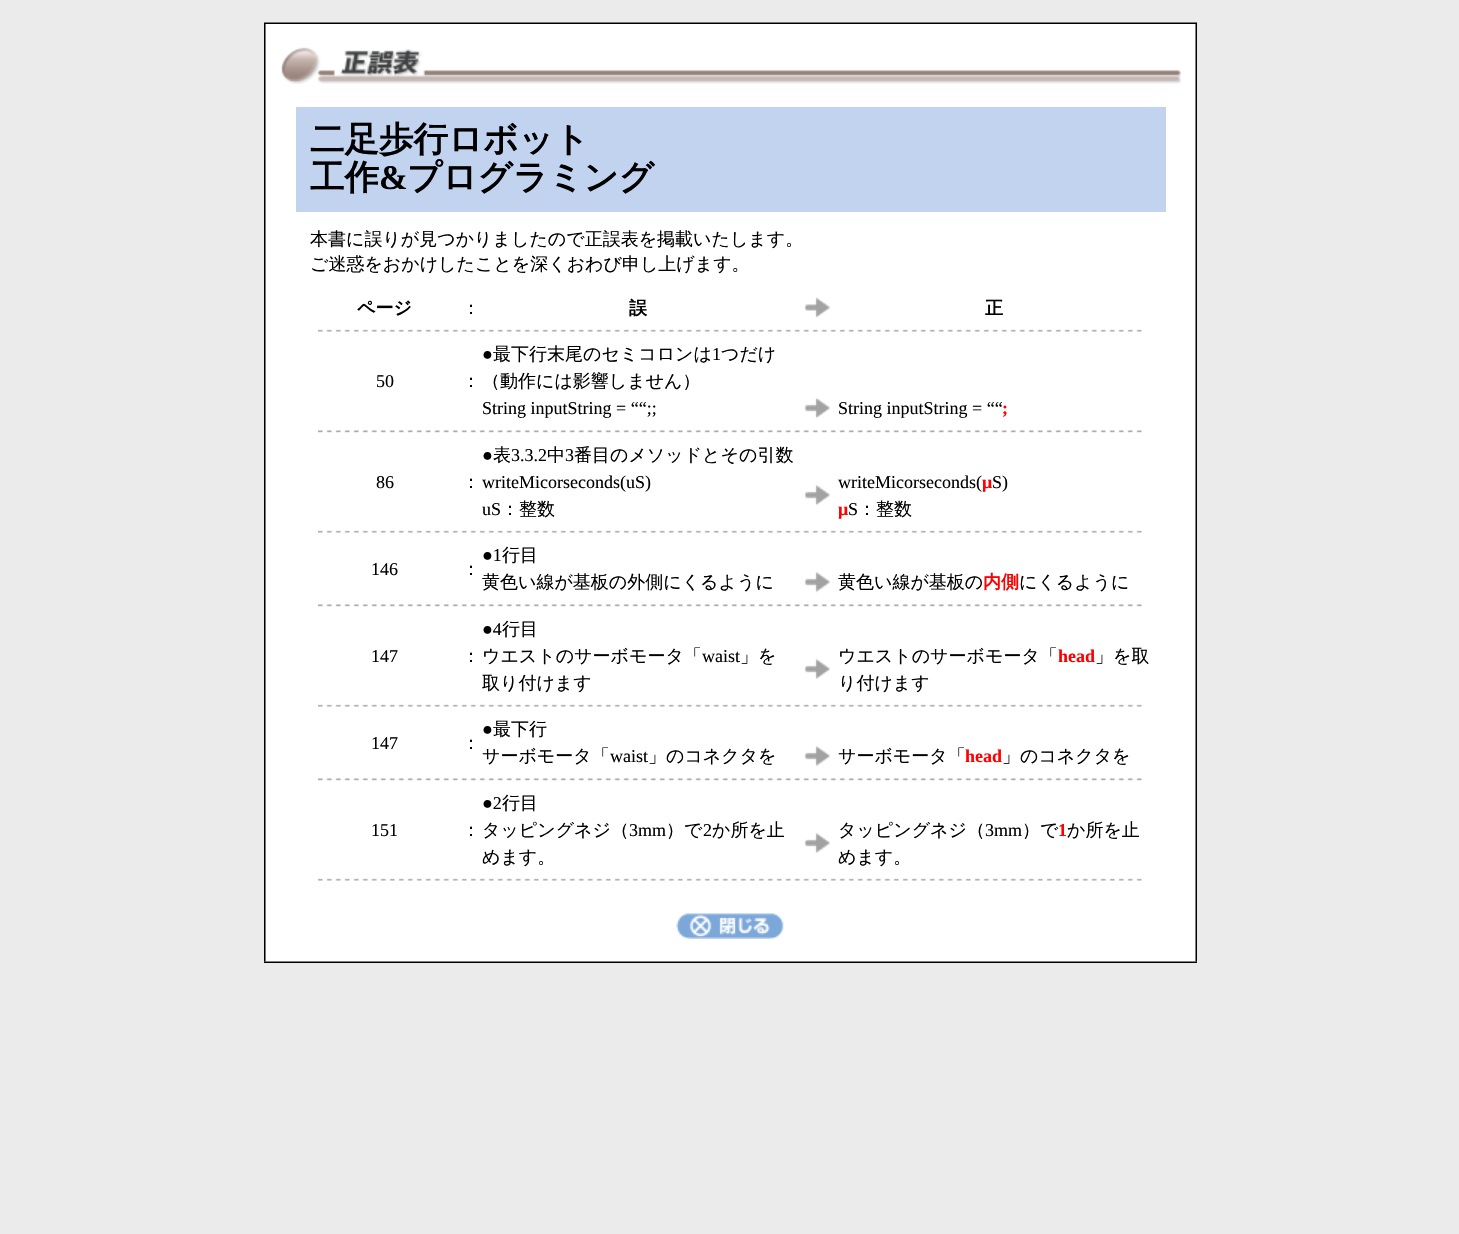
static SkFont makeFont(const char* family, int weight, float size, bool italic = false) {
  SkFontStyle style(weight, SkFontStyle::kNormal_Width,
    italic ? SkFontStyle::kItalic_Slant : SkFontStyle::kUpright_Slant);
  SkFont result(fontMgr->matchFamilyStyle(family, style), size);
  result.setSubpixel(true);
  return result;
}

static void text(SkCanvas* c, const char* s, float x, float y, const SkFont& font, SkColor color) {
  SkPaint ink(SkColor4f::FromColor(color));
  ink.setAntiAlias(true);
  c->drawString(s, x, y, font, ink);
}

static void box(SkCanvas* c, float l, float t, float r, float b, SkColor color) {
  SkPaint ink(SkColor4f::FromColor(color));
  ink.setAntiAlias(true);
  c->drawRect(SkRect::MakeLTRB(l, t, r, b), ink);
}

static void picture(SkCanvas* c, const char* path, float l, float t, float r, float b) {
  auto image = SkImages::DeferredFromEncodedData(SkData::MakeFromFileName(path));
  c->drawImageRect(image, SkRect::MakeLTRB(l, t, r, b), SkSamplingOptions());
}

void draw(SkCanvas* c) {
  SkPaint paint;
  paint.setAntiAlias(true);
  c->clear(0xffebebeb);
  picture(c, "img_01.png", 264, 22, 1197, 24);
  picture(c, "img_02.png", 264, 24, 266, 962);
  box(c, 266, 24, 1196, 962, 0xffffffff);
  picture(c, "img_03.png", 281, 47, 1181, 84);
  box(c, 296, 107, 1166, 212, 0xffc2d3f0);
  SkFont face1 = makeFont("WenQuanYi Zen Hei", 700, 34.5f);
  text(c, "二足歩行ロボット", 310, 151, face1, 0xff000000);
  text(c, "工作", 310, 189, face1, 0xff000000);
  SkFont face2 = makeFont("Liberation Serif", 700, 34.5f);
  text(c, "&", 379, 189, face2, 0xff000000);
  text(c, "プログラミング", 407, 189, face1, 0xff000000);
  SkFont face3 = makeFont("WenQuanYi Zen Hei", 500, 18);
  text(c, "本書に誤りが見つかりましたので正誤表を掲載いたします。", 310, 245, face3, 0xff000000);
  text(c, "ご迷惑をおかけしたことを深くおわび申し上げます。", 310, 270, face3, 0xff000000);
  SkFont face4 = makeFont("WenQuanYi Zen Hei", 700, 18);
  text(c, "ページ", 357, 314, face4, 0xff000000);
  text(c, "：", 462, 314, face3, 0xff000000);
  text(c, "誤", 629, 314, face4, 0xff000000);
  picture(c, "img_04.png", 804, 297, 831, 318);
  text(c, "正", 985, 314, face4, 0xff000000);
  picture(c, "img_05.png", 318, 329, 1142, 332);
  SkFont face5 = makeFont("Liberation Serif", 400, 18);
  text(c, "50", 376, 387, face5, 0xff000000);
  text(c, "：", 462, 387, face3, 0xff000000);
  text(c, "●", 482, 360, face5, 0xff000000);
  text(c, "最下行末尾のセミコロンは", 493, 360, face3, 0xff000000);
  text(c, "1", 712, 360, face5, 0xff000000);
  text(c, "つだけ", 721, 360, face3, 0xff000000);
  text(c, "（動作には影響しません）", 482, 387, face3, 0xff000000);
  text(c, "String inputString = ““;;", 482, 414, face5, 0xff000000);
  picture(c, "img_06.png", 804, 397, 830, 419);
  text(c, "String inputString = ““", 838, 414, face5, 0xff000000);
  SkFont face6 = makeFont("Liberation Serif", 700, 18);
  text(c, ";", 1002, 414, face6, 0xffff0000);
  picture(c, "img_07.png", 318, 430, 1142, 433);
  text(c, "86", 376, 488, face5, 0xff000000);
  text(c, "：", 462, 488, face3, 0xff000000);
  text(c, "●", 482, 461, face5, 0xff000000);
  text(c, "表", 493, 461, face3, 0xff000000);
  text(c, "3.3.2", 511, 461, face5, 0xff000000);
  text(c, "中", 547, 461, face3, 0xff000000);
  text(c, "3", 565, 461, face5, 0xff000000);
  text(c, "番目のメソッドとその引数", 574, 461, face3, 0xff000000);
  text(c, "writeMicorseconds(uS)", 482, 488, face5, 0xff000000);
  text(c, "uS", 482, 515, face5, 0xff000000);
  text(c, "：整数", 501, 515, face3, 0xff000000);
  text(c, "writeMicorseconds(", 838, 488, face5, 0xff000000);
  text(c, "μ", 982, 488, face6, 0xffff0000);
  text(c, "S)", 992, 488, face5, 0xff000000);
  text(c, "μ", 838, 515, face6, 0xffff0000);
  text(c, "S", 848, 515, face5, 0xff000000);
  text(c, "：整数", 858, 515, face3, 0xff000000);
  picture(c, "img_06.png", 804, 484, 830, 506);
  picture(c, "img_05.png", 318, 530, 1142, 533);
  text(c, "146", 371, 575, face5, 0xff000000);
  text(c, "：", 462, 575, face3, 0xff000000);
  text(c, "●1", 482, 561, face5, 0xff000000);
  text(c, "行目", 502, 561, face3, 0xff000000);
  text(c, "黄色い線が基板の外側にくるように", 482, 588, face3, 0xff000000);
  picture(c, "img_06.png", 804, 571, 830, 593);
  text(c, "黄色い線が基板の", 838, 588, face3, 0xff000000);
  text(c, "内側", 983, 588, face4, 0xffff0000);
  text(c, "にくるように", 1019, 588, face3, 0xff000000);
  picture(c, "img_07.png", 318, 604, 1142, 607);
  text(c, "147", 371, 662, face5, 0xff000000);
  text(c, "：", 462, 662, face3, 0xff000000);
  text(c, "●4", 482, 635, face5, 0xff000000);
  text(c, "行目", 502, 635, face3, 0xff000000);
  text(c, "ウエストのサーボモータ「", 482, 662, face3, 0xff000000);
  text(c, "waist", 702, 662, face5, 0xff000000);
  text(c, "」を", 740, 662, face3, 0xff000000);
  text(c, "取り付けます", 482, 689, face3, 0xff000000);
  text(c, "ウエストのサーボモータ「", 838, 662, face3, 0xff000000);
  text(c, "head", 1058, 662, face6, 0xffff0000);
  text(c, "」を取", 1095, 662, face3, 0xff000000);
  text(c, "り付けます", 838, 689, face3, 0xff000000);
  picture(c, "img_06.png", 804, 658, 830, 680);
  picture(c, "img_05.png", 318, 704, 1142, 707);
  text(c, "147", 371, 749, face5, 0xff000000);
  text(c, "：", 462, 749, face3, 0xff000000);
  text(c, "●", 482, 735, face5, 0xff000000);
  text(c, "最下行", 493, 735, face3, 0xff000000);
  text(c, "サーボモータ「", 482, 762, face3, 0xff000000);
  text(c, "waist", 610, 762, face5, 0xff000000);
  text(c, "」のコネクタを", 648, 762, face3, 0xff000000);
  picture(c, "img_06.png", 804, 745, 830, 767);
  text(c, "サーボモータ「", 838, 762, face3, 0xff000000);
  text(c, "head", 965, 762, face6, 0xffff0000);
  text(c, "」のコネクタを", 1002, 762, face3, 0xff000000);
  picture(c, "img_07.png", 318, 778, 1142, 781);
  text(c, "151", 371, 836, face5, 0xff000000);
  text(c, "：", 462, 836, face3, 0xff000000);
  text(c, "●2", 482, 809, face5, 0xff000000);
  text(c, "行目", 502, 809, face3, 0xff000000);
  text(c, "タッピングネジ（", 482, 836, face3, 0xff000000);
  text(c, "3mm", 629, 836, face5, 0xff000000);
  text(c, "）で", 666, 836, face3, 0xff000000);
  text(c, "2", 703, 836, face5, 0xff000000);
  text(c, "か所を止", 712, 836, face3, 0xff000000);
  text(c, "めます。", 482, 863, face3, 0xff000000);
  text(c, "タッピングネジ（", 838, 836, face3, 0xff000000);
  text(c, "3mm", 985, 836, face5, 0xff000000);
  text(c, "）で", 1022, 836, face3, 0xff000000);
  text(c, "1", 1058, 836, face6, 0xffff0000);
  text(c, "か所を止", 1067, 836, face3, 0xff000000);
  text(c, "めます。", 838, 863, face3, 0xff000000);
  picture(c, "img_06.png", 804, 832, 830, 854);
  picture(c, "img_05.png", 318, 878, 1142, 881);
  picture(c, "img_08.png", 676, 913, 784, 939);
  picture(c, "img_09.png", 1195, 24, 1197, 962);
  picture(c, "img_10.png", 264, 961, 1197, 963);
}
